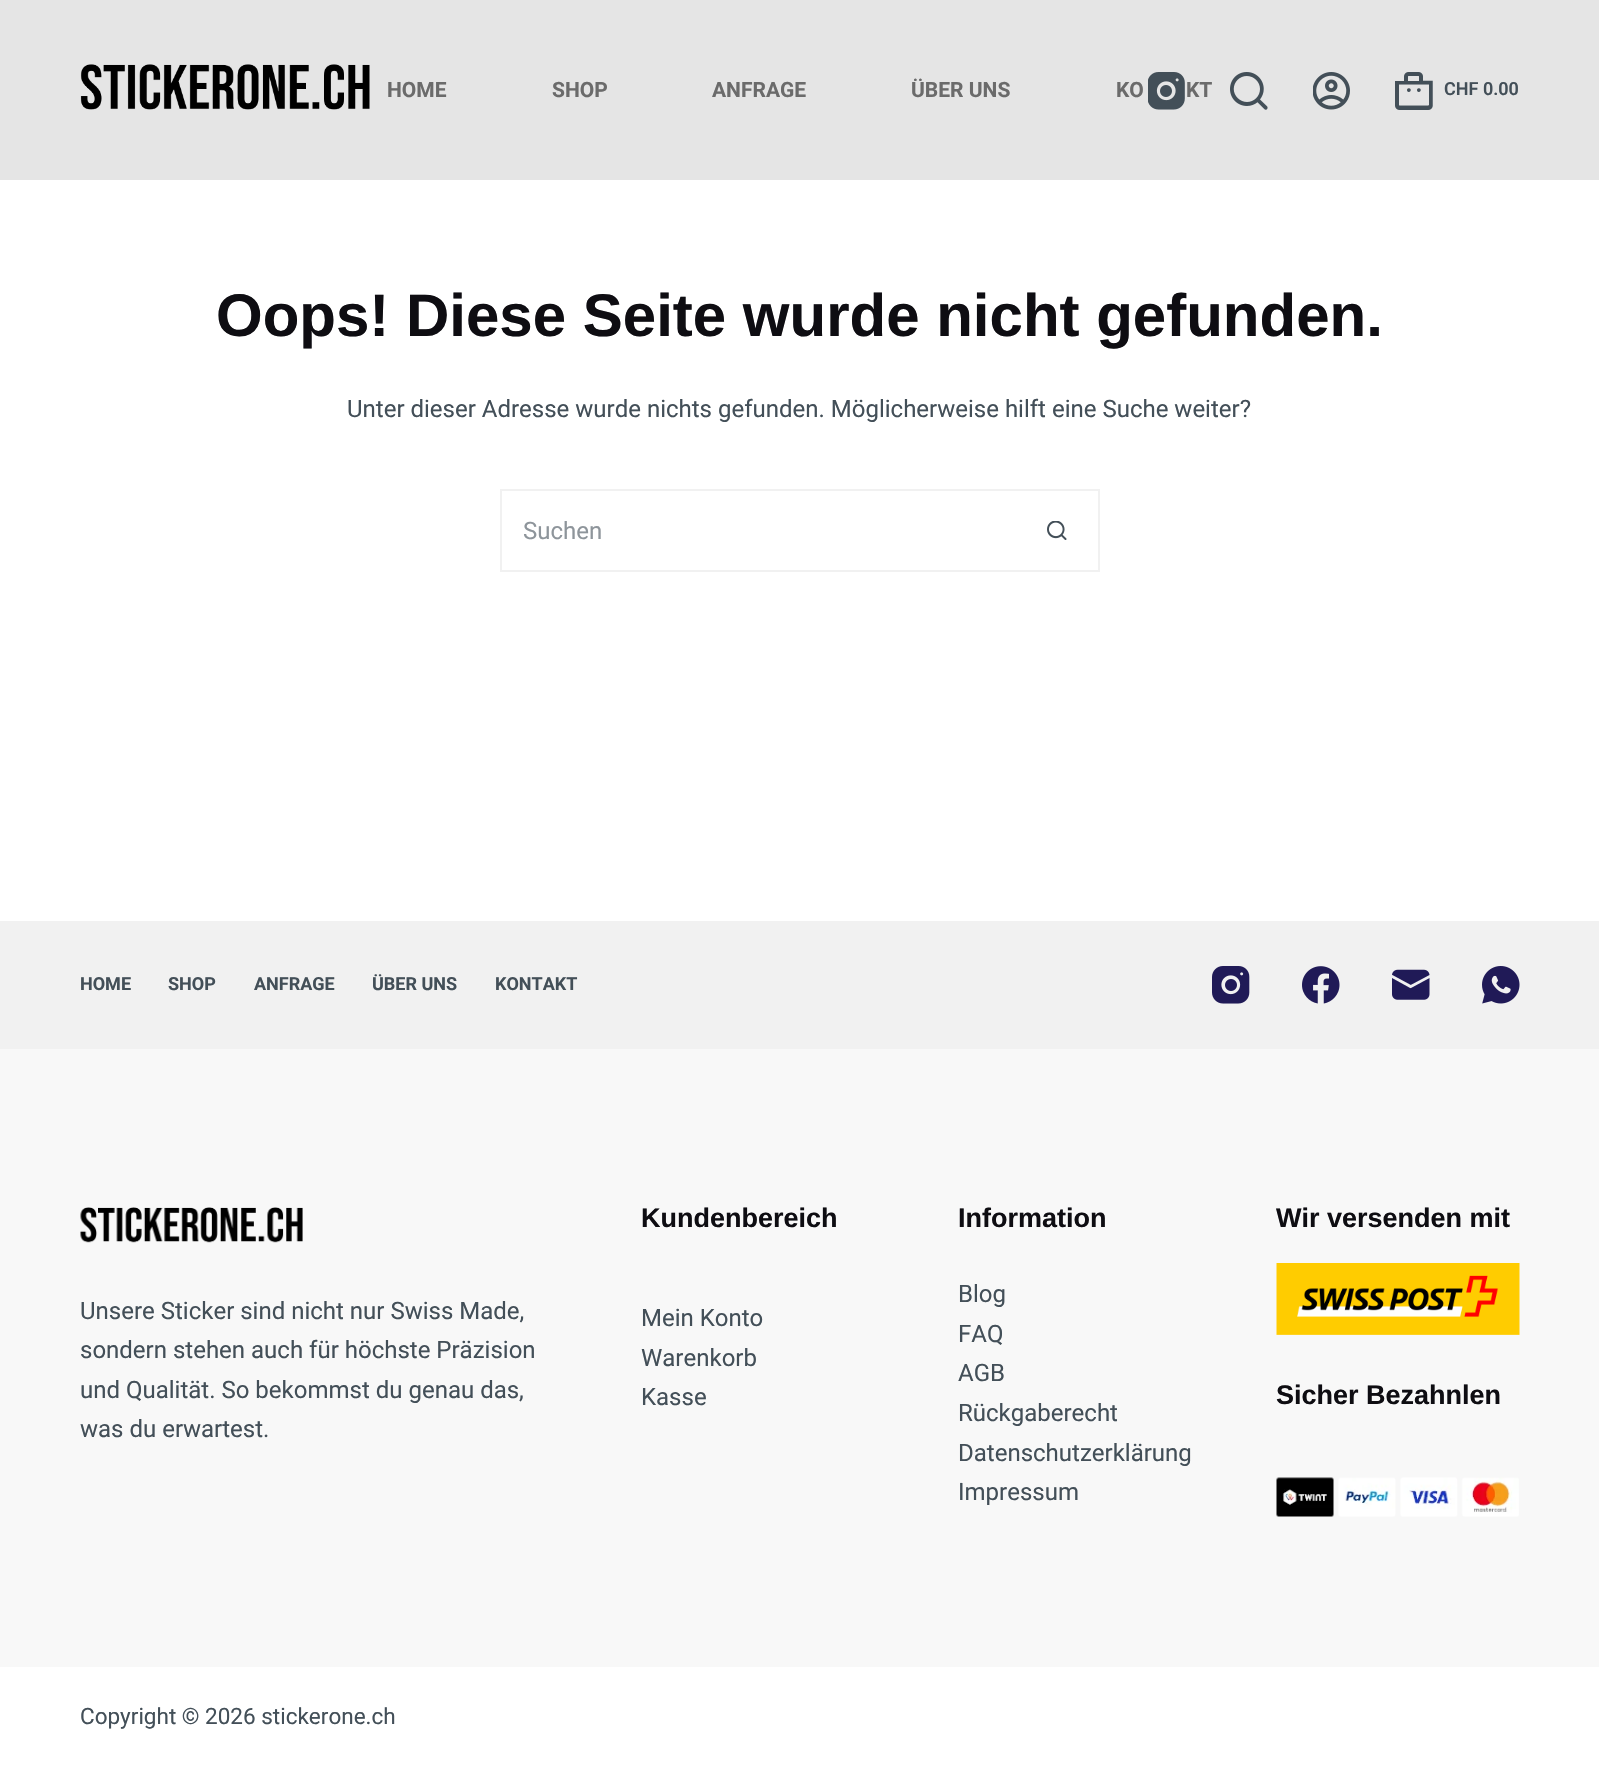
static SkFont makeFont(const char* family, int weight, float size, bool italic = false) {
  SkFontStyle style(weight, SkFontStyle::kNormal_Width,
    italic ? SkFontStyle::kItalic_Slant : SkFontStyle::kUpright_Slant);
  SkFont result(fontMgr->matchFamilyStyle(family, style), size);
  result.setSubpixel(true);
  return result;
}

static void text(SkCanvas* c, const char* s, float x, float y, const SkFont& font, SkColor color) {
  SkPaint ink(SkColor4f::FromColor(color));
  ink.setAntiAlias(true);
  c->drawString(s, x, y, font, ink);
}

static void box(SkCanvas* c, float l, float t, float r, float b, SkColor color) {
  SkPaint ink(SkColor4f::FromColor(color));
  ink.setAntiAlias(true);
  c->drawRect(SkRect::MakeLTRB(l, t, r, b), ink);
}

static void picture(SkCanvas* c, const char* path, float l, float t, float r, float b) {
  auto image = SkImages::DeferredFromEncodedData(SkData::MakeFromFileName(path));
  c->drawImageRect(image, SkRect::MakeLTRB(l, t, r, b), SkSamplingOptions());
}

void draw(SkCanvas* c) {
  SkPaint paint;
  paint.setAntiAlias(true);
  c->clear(0xffffffff);
  box(c, 0, 0, 1599, 180, 0xffe5e5e5);
  picture(c, "img_01.png", 80, 64, 370, 110);
  SkFont face1 = makeFont("Roboto", 700, 21);
  text(c, "HOME", 387, 97, face1, 0xff6b6b6b);
  text(c, "SHOP", 552, 97, face1, 0xff6b6b6b);
  text(c, "ANFRAGE", 712, 97, face1, 0xff6b6b6b);
  text(c, "ÜBER UNS", 911, 97, face1, 0xff6b6b6b);
  text(c, "KO", 1116, 97, face1, 0xff6b6b6b);
  text(c, "KT", 1186, 97, face1, 0xff6b6b6b);
  picture(c, "img_02.png", 1148, 72, 1185, 110);
  picture(c, "img_03.png", 1230, 72, 1268, 110);
  picture(c, "img_04.png", 1313, 72, 1350, 110);
  picture(c, "img_05.png", 1395, 72, 1433, 110);
  SkFont face2 = makeFont("Roboto", 600, 18);
  text(c, "CHF 0.00", 1444, 95, face2, 0xff434f58);
  SkFont face3 = makeFont("Liberation Sans", 700, 60);
  text(c, "Oops! Diese Seite wurde nicht gefunden.", 216, 336, face3, 0xff0e0d12);
  SkFont face4 = makeFont("Roboto", 400, 24);
  text(c, "Unter dieser Adresse wurde nichts gefunden. Möglicherweise hilft eine Suche weiter?", 347, 417, face4, 0xff434f58);
  box(c, 500, 489, 1100, 491, 0xfff1f1f1);
  box(c, 500, 570, 1017, 572, 0xfff1f1f1);
  box(c, 500, 489, 502, 572, 0xfff1f1f1);
  text(c, "Suchen", 523, 539, face4, 0xff8e959b);
  box(c, 1098, 489, 1100, 572, 0xfff1f1f1);
  box(c, 1017, 570, 1100, 572, 0xfff1f1f1);
  picture(c, "img_06.png", 1047, 521, 1067, 540);
  box(c, 0, 1049, 1599, 1667, 0xfff8f8f8);
  box(c, 0, 921, 1599, 1049, 0xfff1f1f1);
  SkFont face5 = makeFont("Roboto", 700, 18);
  text(c, "HOME", 80, 990, face5, 0xff434f58);
  text(c, "SHOP", 168, 990, face5, 0xff434f58);
  text(c, "ANFRAGE", 254, 990, face5, 0xff434f58);
  text(c, "ÜBER UNS", 372, 990, face5, 0xff434f58);
  text(c, "KONTAKT", 495, 990, face5, 0xff434f58);
  picture(c, "img_07.png", 1212, 966, 1250, 1004);
  picture(c, "img_08.png", 1302, 966, 1340, 1004);
  picture(c, "img_09.png", 1392, 969, 1430, 1000);
  picture(c, "img_10.png", 1482, 966, 1520, 1004);
  picture(c, "img_11.png", 80, 1207, 303, 1243);
  text(c, "Unsere Sticker sind nicht nur Swiss Made,", 80, 1319, face4, 0xff434f58);
  text(c, "sondern stehen auch für höchste Präzision", 80, 1358, face4, 0xff434f58);
  text(c, "und Qualität. So bekommst du genau das,", 80, 1398, face4, 0xff434f58);
  text(c, "was du erwartest.", 80, 1437, face4, 0xff434f58);
  SkFont face6 = makeFont("Liberation Sans", 700, 27);
  text(c, "Kundenbereich", 641, 1227, face6, 0xff0e0d12);
  text(c, "Mein Konto", 641, 1326, face4, 0xff434f58);
  text(c, "Warenkorb", 641, 1366, face4, 0xff434f58);
  text(c, "Kasse", 641, 1405, face4, 0xff434f58);
  text(c, "Information", 958, 1227, face6, 0xff0e0d12);
  text(c, "Blog", 958, 1302, face4, 0xff434f58);
  text(c, "FAQ", 958, 1342, face4, 0xff434f58);
  text(c, "AGB", 958, 1381, face4, 0xff434f58);
  text(c, "Rückgaberecht", 958, 1421, face4, 0xff434f58);
  text(c, "Datenschutzerklärung", 958, 1461, face4, 0xff434f58);
  text(c, "Impressum", 958, 1500, face4, 0xff434f58);
  text(c, "Wir versenden mit", 1276, 1227, face6, 0xff0e0d12);
  picture(c, "img_12.png", 1276, 1263, 1520, 1335);
  text(c, "Sicher Bezahnlen", 1276, 1404, face6, 0xff0e0d12);
  picture(c, "img_13.png", 1276, 1477, 1519, 1517);
  SkFont face7 = makeFont("Roboto", 400, 22.5f);
  text(c, "Copyright © 2026 stickerone.ch", 80, 1724, face7, 0xff434f58);
}
